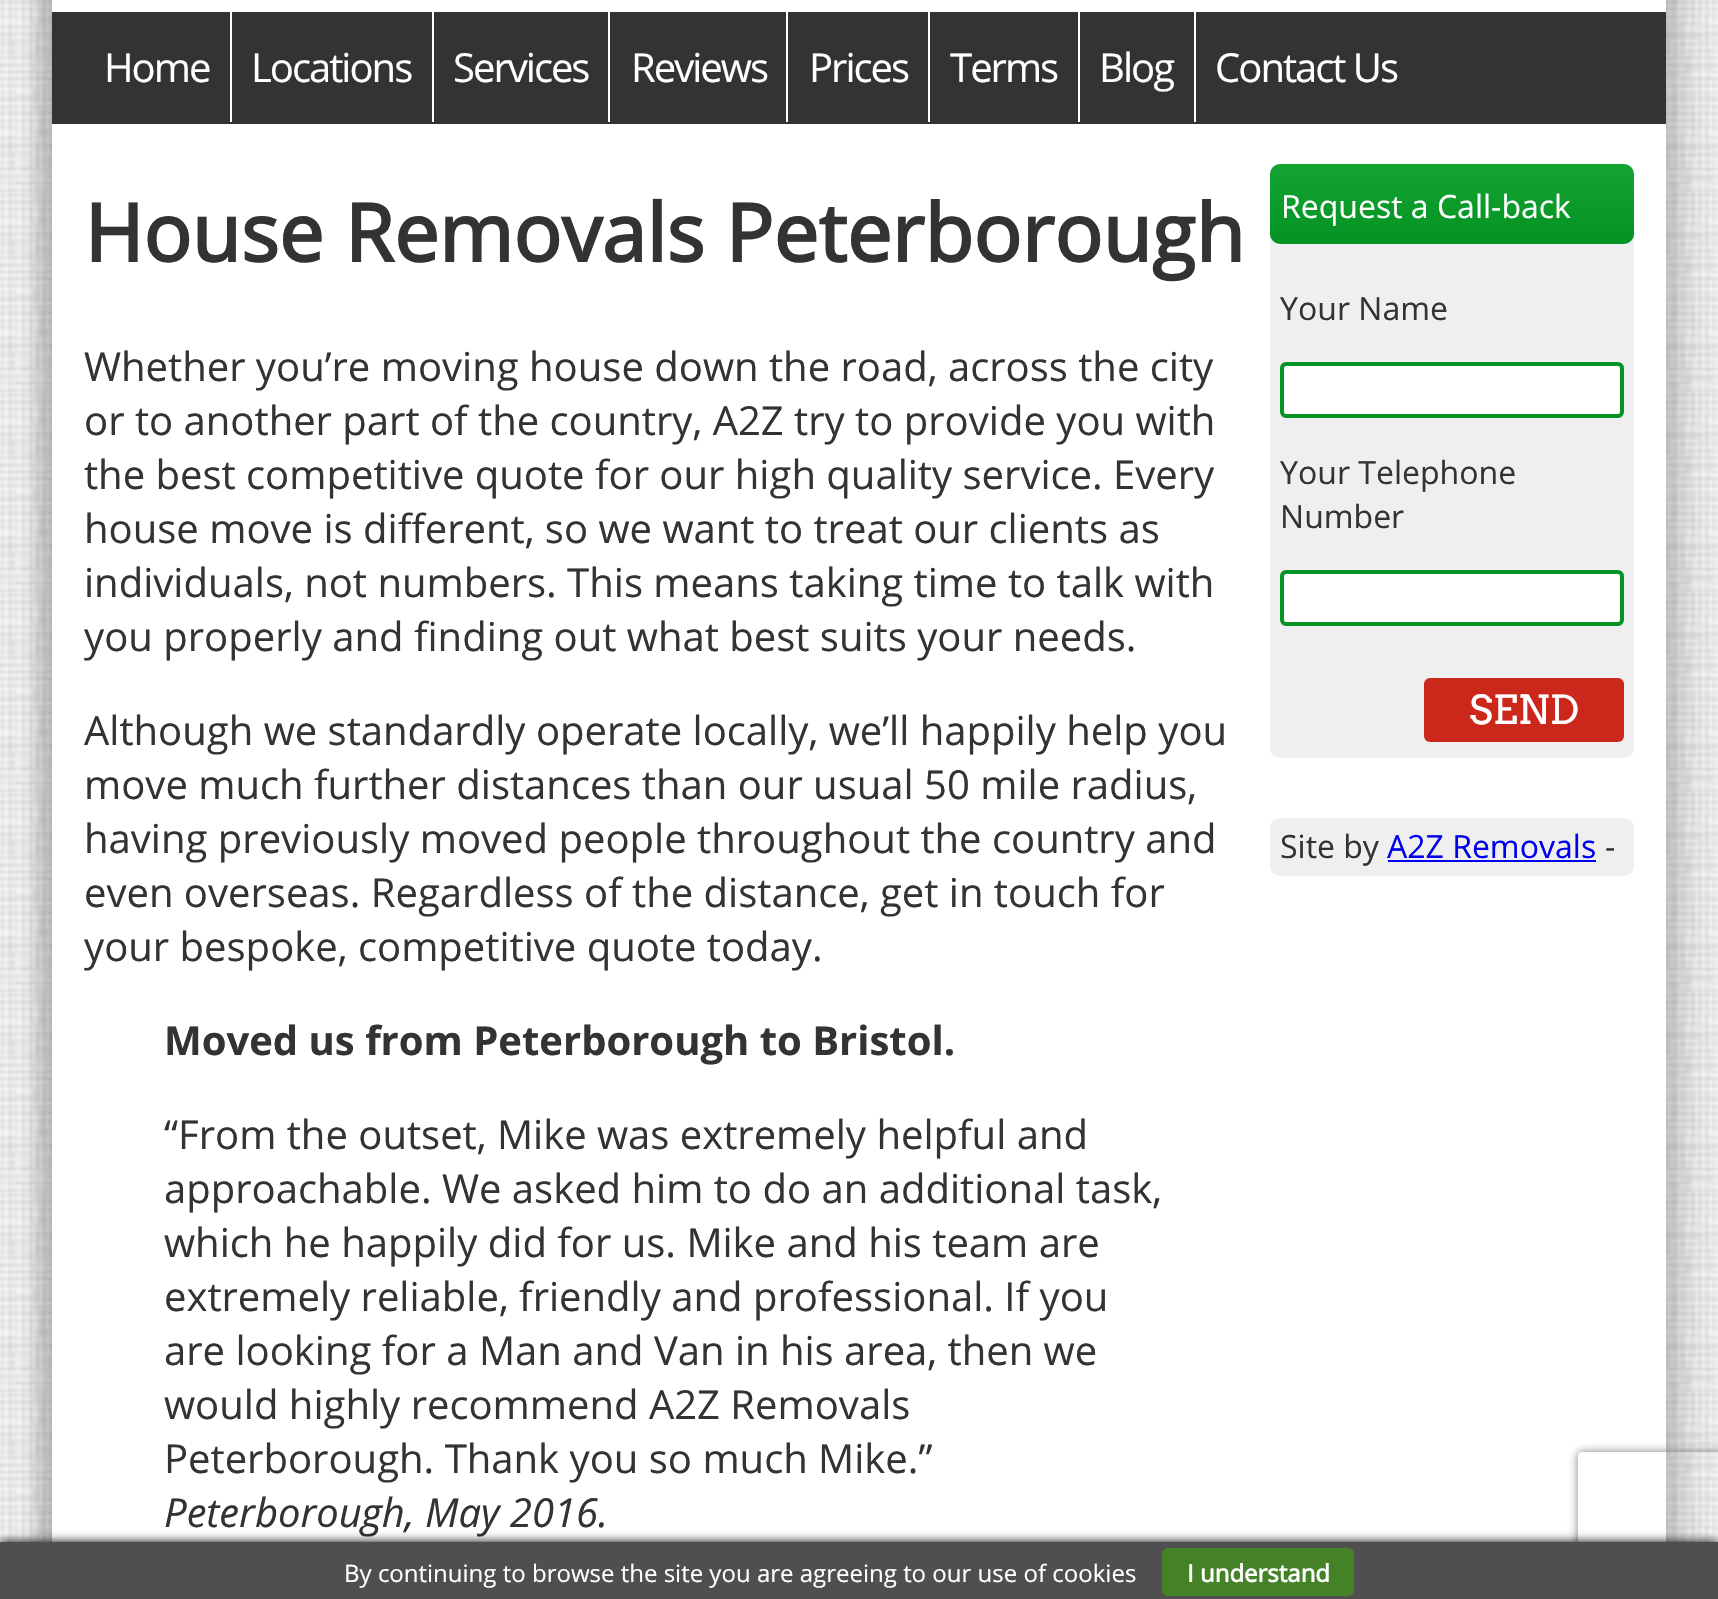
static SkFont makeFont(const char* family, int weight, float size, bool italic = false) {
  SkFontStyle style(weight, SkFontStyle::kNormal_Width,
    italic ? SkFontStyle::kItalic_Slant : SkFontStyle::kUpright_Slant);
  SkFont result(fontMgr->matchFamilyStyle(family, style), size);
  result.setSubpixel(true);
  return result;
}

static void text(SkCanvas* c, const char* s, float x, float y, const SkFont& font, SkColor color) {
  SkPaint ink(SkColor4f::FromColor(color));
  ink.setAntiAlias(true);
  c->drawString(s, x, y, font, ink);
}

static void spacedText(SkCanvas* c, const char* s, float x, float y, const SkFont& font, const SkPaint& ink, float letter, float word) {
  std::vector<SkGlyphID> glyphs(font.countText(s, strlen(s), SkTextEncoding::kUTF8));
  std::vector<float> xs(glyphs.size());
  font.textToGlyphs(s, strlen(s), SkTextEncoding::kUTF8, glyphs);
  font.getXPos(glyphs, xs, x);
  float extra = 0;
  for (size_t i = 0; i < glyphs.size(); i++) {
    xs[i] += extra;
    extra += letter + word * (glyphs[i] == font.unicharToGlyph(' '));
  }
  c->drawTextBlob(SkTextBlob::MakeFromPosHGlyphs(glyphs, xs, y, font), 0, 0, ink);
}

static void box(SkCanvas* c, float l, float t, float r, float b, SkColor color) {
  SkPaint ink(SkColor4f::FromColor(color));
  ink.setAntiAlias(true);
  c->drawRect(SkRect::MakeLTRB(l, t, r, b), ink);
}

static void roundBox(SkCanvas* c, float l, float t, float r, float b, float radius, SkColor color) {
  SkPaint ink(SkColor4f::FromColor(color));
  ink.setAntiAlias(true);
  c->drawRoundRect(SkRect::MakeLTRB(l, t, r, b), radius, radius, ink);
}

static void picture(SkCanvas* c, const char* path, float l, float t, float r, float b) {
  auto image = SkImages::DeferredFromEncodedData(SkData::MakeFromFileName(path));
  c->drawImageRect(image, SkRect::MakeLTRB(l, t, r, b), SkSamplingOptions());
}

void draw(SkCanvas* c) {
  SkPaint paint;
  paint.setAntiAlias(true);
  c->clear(0xffffffff);
  picture(c, "img_01.png", 0, 0, 1718, 1542);
  paint.setColor(0x33000000);
  paint.setMaskFilter(SkMaskFilter::MakeBlur(kNormal_SkBlurStyle, 8));
  c->drawRect(SkRect::MakeLTRB(36, -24, 1634, 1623), paint);
  paint.setMaskFilter(nullptr);
  paint.setMaskFilter(SkMaskFilter::MakeBlur(kNormal_SkBlurStyle, 15));
  c->drawRect(SkRect::MakeLTRB(84, -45, 1682, 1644), paint);
  paint.setMaskFilter(nullptr);
  box(c, 52, 0, 1666, 1542, 0xffffffff);
  box(c, 52, 12, 1666, 124, 0xff333333);
  box(c, 230, 12, 232, 122, 0xffffffff);
  SkFont face1 = makeFont("Open Sans", 400, 40);
  paint.setColor(0xffffffff);
  spacedText(c, "Home", 104, 82, face1, paint, -2, 0);
  box(c, 432, 12, 434, 122, 0xffffffff);
  spacedText(c, "Locations", 251, 82, face1, paint, -2, 0);
  box(c, 608, 12, 610, 122, 0xffffffff);
  spacedText(c, "Services", 453, 82, face1, paint, -2, 0);
  box(c, 786, 12, 788, 122, 0xffffffff);
  spacedText(c, "Reviews", 631, 82, face1, paint, -2, 0);
  box(c, 928, 12, 930, 122, 0xffffffff);
  spacedText(c, "Prices", 809, 82, face1, paint, -2, 0);
  box(c, 1078, 12, 1080, 122, 0xffffffff);
  spacedText(c, "Terms", 950, 82, face1, paint, -2, 0);
  box(c, 1194, 12, 1196, 122, 0xffffffff);
  spacedText(c, "Blog", 1099, 82, face1, paint, -2, 0);
  spacedText(c, "Contact Us", 1215, 82, face1, paint, -2, 0);
  SkFont face2 = makeFont("Open Sans", 700, 80);
  text(c, "House Removals Peterborough", 84, 262, face2, 0xff333333);
  text(c, "Whether you’re moving house down the road, across the city", 84, 381, face1, 0xff333333);
  text(c, "or to another part of the country, A2Z try to provide you with", 84, 435, face1, 0xff333333);
  text(c, "the best competitive quote for our high quality service. Every", 84, 489, face1, 0xff333333);
  text(c, "house move is different, so we want to treat our clients as", 84, 543, face1, 0xff333333);
  text(c, "individuals, not numbers. This means taking time to talk with", 84, 597, face1, 0xff333333);
  text(c, "you properly and finding out what best suits your needs.", 84, 651, face1, 0xff333333);
  text(c, "Although we standardly operate locally, we’ll happily help you", 84, 745, face1, 0xff333333);
  text(c, "move much further distances than our usual 50 mile radius,", 84, 799, face1, 0xff333333);
  text(c, "having previously moved people throughout the country and", 84, 853, face1, 0xff333333);
  text(c, "even overseas. Regardless of the distance, get in touch for", 84, 907, face1, 0xff333333);
  text(c, "your bespoke, competitive quote today.", 84, 961, face1, 0xff333333);
  SkFont face3 = makeFont("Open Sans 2", 700, 40);
  text(c, "Moved us from Peterborough to Bristol.", 164, 1055, face3, 0xff333333);
  text(c, "“From the outset, Mike was extremely helpful and", 164, 1149, face1, 0xff333333);
  text(c, "approachable. We asked him to do an additional task,", 164, 1203, face1, 0xff333333);
  text(c, "which he happily did for us. Mike and his team are", 164, 1257, face1, 0xff333333);
  text(c, "extremely reliable, friendly and professional. If you", 164, 1311, face1, 0xff333333);
  text(c, "are looking for a Man and Van in his area, then we", 164, 1365, face1, 0xff333333);
  text(c, "would highly recommend A2Z Removals", 164, 1419, face1, 0xff333333);
  text(c, "Peterborough. Thank you so much Mike.”", 164, 1473, face1, 0xff333333);
  SkFont face4 = makeFont("Open Sans", 400, 40, true);
  text(c, "Peterborough, May 2016.", 164, 1527, face4, 0xff333333);
  roundBox(c, 1270, 164, 1634, 758, 10, 0xffefefef);
  {
    const SkColor colors[] = {0xff14a432, 0xff049322};
    const float stops[] = {0, 1};
    const SkPoint ends[] = {{1452, 164}, {1452, 244}};
    paint.setShader(SkGradientShader::MakeLinear(ends, colors, stops, 2, SkTileMode::kClamp));
    paint.setAlpha(255);
  }
  c->drawRoundRect(SkRect::MakeLTRB(1270, 164, 1634, 244), 10, 10, paint);
  SkFont face5 = makeFont("Open Sans", 400, 32);
  text(c, "Request a Call-back", 1281, 218, face5, 0xffffffff);
  text(c, "Your Name", 1280, 320, face5, 0xff333333);
  paint.setShader(nullptr);
  paint.setColor(0xffffffff);
  c->drawRoundRect(SkRect::MakeLTRB(1282, 364, 1622, 416), 4, 4, paint);
  paint.setStyle(SkPaint::kStroke_Style);
  paint.setStrokeWidth(4);
  paint.setColor(0xff059423);
  c->drawRoundRect(SkRect::MakeLTRB(1282, 364, 1622, 416), 4, 4, paint);
  text(c, "Your Telephone", 1280, 484, face5, 0xff333333);
  text(c, "Number", 1280, 528, face5, 0xff333333);
  paint.setStyle(SkPaint::kFill_Style);
  paint.setColor(0xffffffff);
  c->drawRoundRect(SkRect::MakeLTRB(1282, 572, 1622, 624), 4, 4, paint);
  paint.setStyle(SkPaint::kStroke_Style);
  paint.setColor(0xff059423);
  c->drawRoundRect(SkRect::MakeLTRB(1282, 572, 1622, 624), 4, 4, paint);
  picture(c, "img_02.png", 1424, 678, 1624, 742);
  SkFont face6 = makeFont("Arvo", 400, 40);
  text(c, "SEND", 1469, 724, face6, 0xffffffff);
  roundBox(c, 1270, 818, 1634, 876, 10, 0xffefefef);
  text(c, "Site by", 1280, 858, face5, 0xff333333);
  text(c, "A2Z Removals", 1387, 858, face5, 0xff0000ee);
  box(c, 1388, 860, 1596, 862, 0xff0000ee);
  text(c, "-", 1605, 858, face5, 0xff333333);
  c->save();
  c->clipPath(SkPathBuilder(SkPathFillType::kEvenOdd).moveTo(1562, 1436).lineTo(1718, 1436).lineTo(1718, 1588).lineTo(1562, 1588).close().moveTo(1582, 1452).lineTo(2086, 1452).cubicTo(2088, 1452, 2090, 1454, 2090, 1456).lineTo(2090, 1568).cubicTo(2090, 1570, 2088, 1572, 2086, 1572).lineTo(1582, 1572).cubicTo(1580, 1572, 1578, 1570, 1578, 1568).lineTo(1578, 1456).cubicTo(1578, 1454, 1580, 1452, 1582, 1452).close().detach(), true);
  paint.setStyle(SkPaint::kFill_Style);
  paint.setColor(0xff808080);
  paint.setMaskFilter(SkMaskFilter::MakeBlur(kNormal_SkBlurStyle, 5));
  c->drawRoundRect(SkRect::MakeLTRB(1578, 1452, 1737, 1572), 4, 4, paint);
  paint.setMaskFilter(nullptr);
  c->restore();
  paint.setColor(0xff000000);
  paint.setMaskFilter(SkMaskFilter::MakeBlur(kNormal_SkBlurStyle, 5));
  c->drawRect(SkRect::MakeLTRB(0, 1542, 1718, 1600), paint);
  paint.setMaskFilter(nullptr);
  box(c, 0, 1542, 1718, 1599, 0xff4f4f4f);
  SkFont face7 = makeFont("Open Sans", 400, 24);
  text(c, "By continuing to browse the site you are agreeing to our use of cookies", 344, 1582, face7, 0xffffffff);
  roundBox(c, 1162, 1548, 1354, 1596, 6, 0xff458227);
  SkFont face8 = makeFont("Open Sans", 700, 24);
  text(c, "I understand", 1187, 1582, face8, 0xffffffff);
}
